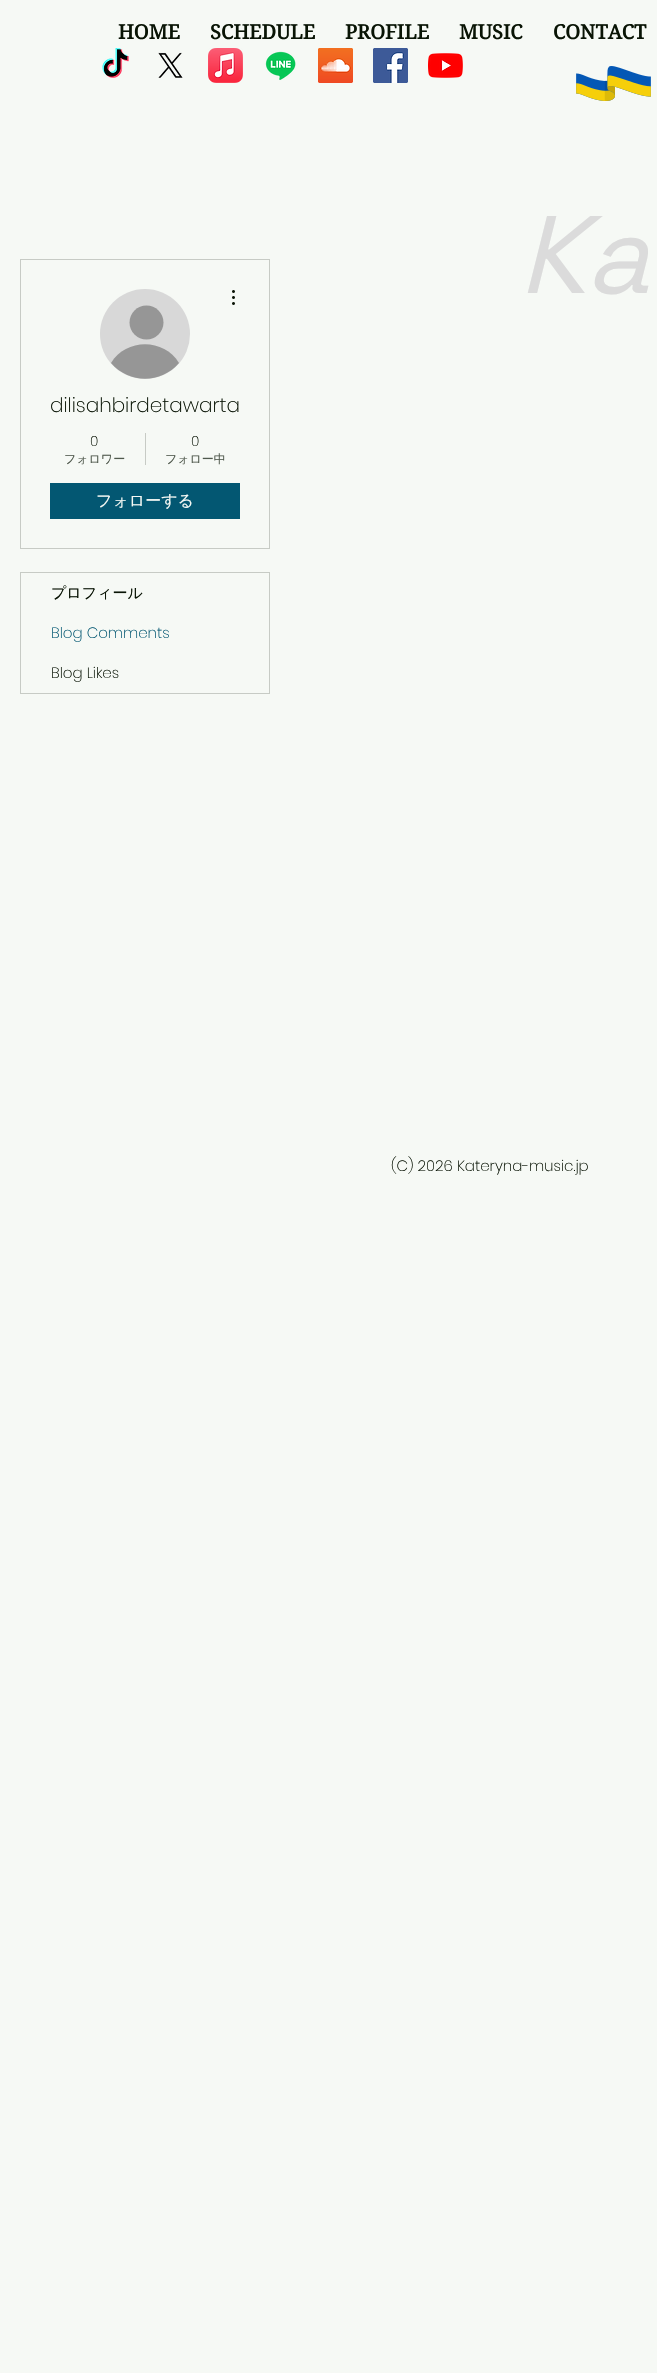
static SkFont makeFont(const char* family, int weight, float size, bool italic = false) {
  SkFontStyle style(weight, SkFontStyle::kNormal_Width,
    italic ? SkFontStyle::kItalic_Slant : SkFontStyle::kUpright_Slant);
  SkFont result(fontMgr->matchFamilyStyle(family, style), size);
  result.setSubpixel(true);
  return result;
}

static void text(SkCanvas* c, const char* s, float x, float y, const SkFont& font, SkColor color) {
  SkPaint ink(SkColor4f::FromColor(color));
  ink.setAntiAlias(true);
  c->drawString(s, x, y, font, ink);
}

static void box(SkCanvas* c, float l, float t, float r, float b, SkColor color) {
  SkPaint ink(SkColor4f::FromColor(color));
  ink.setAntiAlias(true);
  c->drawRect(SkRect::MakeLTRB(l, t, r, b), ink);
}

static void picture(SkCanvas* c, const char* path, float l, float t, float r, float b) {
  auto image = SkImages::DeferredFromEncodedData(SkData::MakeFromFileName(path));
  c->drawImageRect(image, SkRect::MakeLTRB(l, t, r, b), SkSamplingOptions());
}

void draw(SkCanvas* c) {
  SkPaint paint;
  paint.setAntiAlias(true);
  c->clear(0xfff6f9f5);
  SkFont face1 = makeFont("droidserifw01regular", 700, 20);
  text(c, "HOME", 118, 39, face1, 0xff091405);
  text(c, "SCHEDULE", 210, 39, face1, 0xff091405);
  text(c, "PROFILE", 345, 39, face1, 0xff091405);
  text(c, "MUSIC", 459, 39, face1, 0xff091405);
  text(c, "CONTACT", 553, 39, face1, 0xff091405);
  picture(c, "img_01.png", 102, 48, 129, 78);
  picture(c, "img_02.png", 158, 52, 183, 78);
  picture(c, "img_03.png", 208, 48, 243, 83);
  picture(c, "img_04.png", 265, 51, 296, 80);
  picture(c, "img_05.png", 318, 48, 353, 83);
  picture(c, "img_06.png", 373, 48, 408, 83);
  picture(c, "img_07.png", 428, 53, 463, 78);
  picture(c, "img_08.png", 576, 66, 651, 101);
  SkFont face2 = makeFont("Space Grotesk", 400, 110, true);
  text(c, "Ka", 519, 293, face2, 0xffdbdbdb);
  paint.setStyle(SkPaint::kStroke_Style);
  paint.setStrokeWidth(1);
  paint.setColor(0xffc7cbc5);
  c->drawRect(SkRect::MakeLTRB(20.5f, 259.5f, 269.5f, 548.5f), paint);
  paint.setStyle(SkPaint::kFill_Style);
  paint.setColor(0xffd8d8d8);
  c->drawCircle(145, 334, 45, paint);
  paint.setColor(0xff969696);
  c->drawCircle(146.5f, 322.5f, 17, paint);
  c->drawPath(SkPathBuilder().moveTo(179, 363).cubicTo(161, 384, 129, 384, 111, 363).cubicTo(126, 338, 164, 338, 179, 363).close().detach(), paint);
  picture(c, "img_09.png", 232, 290, 235, 305);
  SkFont face3 = makeFont("Poppins", 200, 20);
  text(c, "dilisahbirdetawarta", 50, 412, face3, 0xff091405);
  SkFont face4 = makeFont("Poppins", 200, 14);
  text(c, "0", 90, 446, face4, 0xff091405);
  SkFont face5 = makeFont("WenQuanYi Zen Hei", 500, 12);
  text(c, "フォロワー", 64, 463, face5, 0xff50594d);
  box(c, 145, 433, 146, 465, 0xffc7cbc5);
  text(c, "0", 191, 446, face4, 0xff091405);
  text(c, "フォロー中", 165, 463, face5, 0xff50594d);
  box(c, 50, 483, 240, 519, 0xff035772);
  SkFont face6 = makeFont("WenQuanYi Zen Hei", 500, 16);
  text(c, "フォローする", 96, 506, face6, 0xfff6f9f5);
  paint.setStyle(SkPaint::kStroke_Style);
  paint.setColor(0xffc7cbc5);
  c->drawRect(SkRect::MakeLTRB(20.5f, 572.5f, 269.5f, 693.5f), paint);
  SkFont face7 = makeFont("WenQuanYi Zen Hei", 500, 15);
  text(c, "プロフィール", 51, 598, face7, 0xff091405);
  SkFont face8 = makeFont("Poppins", 200, 15);
  text(c, "Blog Comments", 51, 638, face8, 0xff035772);
  text(c, "Blog Likes", 51, 678, face8, 0xff091405);
  text(c, "(C) 2026 Kateryna-music.jp", 391, 1171, face8, 0xff091405);
}
